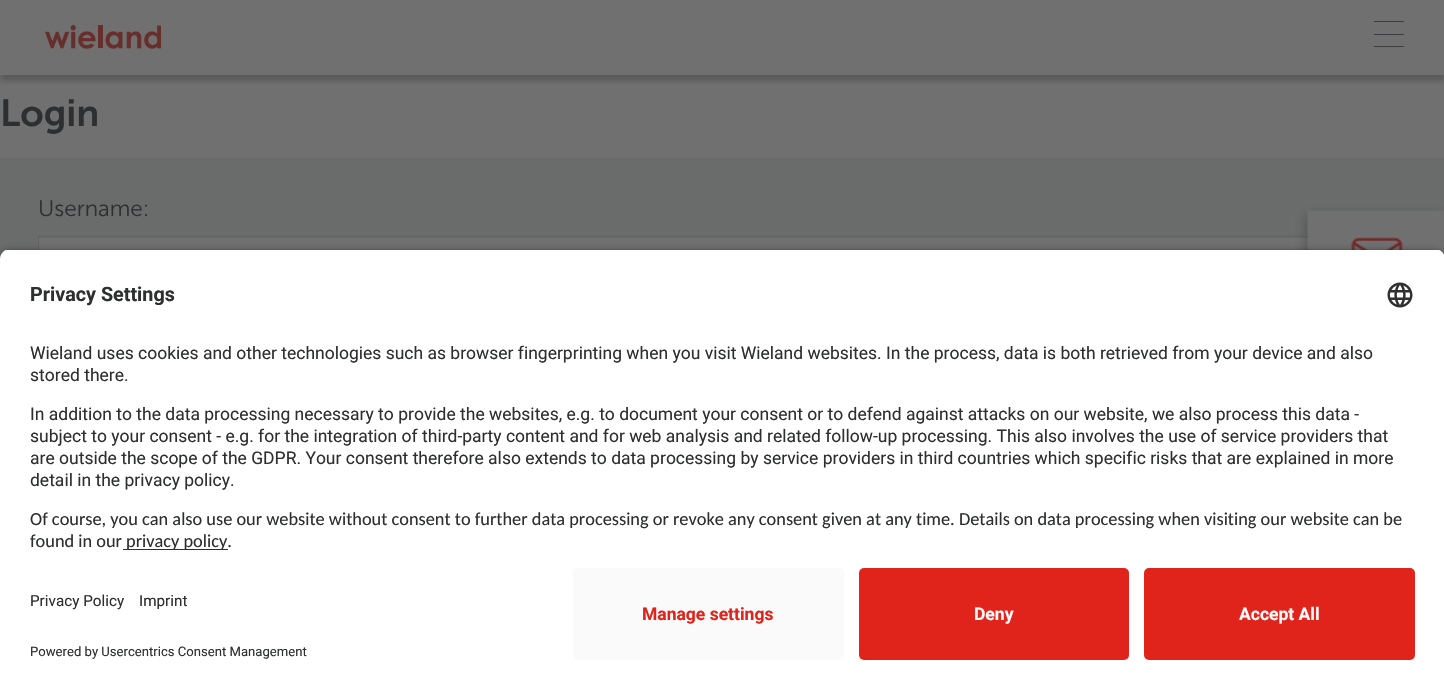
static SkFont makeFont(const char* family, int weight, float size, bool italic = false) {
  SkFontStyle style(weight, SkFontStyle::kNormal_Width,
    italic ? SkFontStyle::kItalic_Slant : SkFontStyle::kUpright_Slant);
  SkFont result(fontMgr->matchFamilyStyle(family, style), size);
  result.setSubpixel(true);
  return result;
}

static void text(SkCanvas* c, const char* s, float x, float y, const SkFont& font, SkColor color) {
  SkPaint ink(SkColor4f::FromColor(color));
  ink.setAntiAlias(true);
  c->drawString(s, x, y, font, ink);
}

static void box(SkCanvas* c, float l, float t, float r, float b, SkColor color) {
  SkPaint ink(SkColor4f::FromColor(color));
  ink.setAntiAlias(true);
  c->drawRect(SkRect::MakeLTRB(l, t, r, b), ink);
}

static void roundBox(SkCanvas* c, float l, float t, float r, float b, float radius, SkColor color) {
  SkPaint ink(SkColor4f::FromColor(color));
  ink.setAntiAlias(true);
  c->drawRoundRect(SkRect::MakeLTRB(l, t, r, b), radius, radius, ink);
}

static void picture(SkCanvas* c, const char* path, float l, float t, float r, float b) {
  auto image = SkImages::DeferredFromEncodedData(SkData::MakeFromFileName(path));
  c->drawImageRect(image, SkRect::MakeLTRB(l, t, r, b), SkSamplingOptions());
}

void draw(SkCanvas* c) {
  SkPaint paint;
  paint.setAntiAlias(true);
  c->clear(0xff707070);
  c->save();
  c->clipRect(SkRect::MakeLTRB(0, 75, 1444, 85));
  paint.setColor(0x4d242424);
  paint.setMaskFilter(SkMaskFilter::MakeBlur(kNormal_SkBlurStyle, 3));
  c->drawRect(SkRect::MakeLTRB(0, 6, 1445, 81), paint);
  paint.setMaskFilter(nullptr);
  c->restore();
  picture(c, "img_01.png", 45, 25, 161, 49);
  box(c, 1374, 34, 1404, 35, 0xff3d3d3f);
  box(c, 1374, 21, 1404, 22, 0xff3d3d3f);
  box(c, 1374, 46, 1404, 47, 0xff3d3d3f);
  SkFont face1 = makeFont("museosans", 400, 37.5f);
  text(c, "Login", 0, 126, face1, 0xff2e2f30);
  box(c, 0, 158, 1444, 259, 0xff6a6b6b);
  SkFont face2 = makeFont("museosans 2", 400, 22.5f);
  text(c, "Username:", 38, 216, face2, 0xff2e2f30);
  box(c, 39, 238, 1308, 250, 0xff707070);
  paint.setStyle(SkPaint::kStroke_Style);
  paint.setStrokeWidth(1);
  paint.setColor(0xff60605f);
  c->drawRect(SkRect::MakeLTRB(38.5f, 236.5f, 1407.5f, 303.5f), paint);
  paint.setStyle(SkPaint::kFill_Style);
  paint.setColor(0x4d242424);
  paint.setMaskFilter(SkMaskFilter::MakeBlur(kNormal_SkBlurStyle, 5));
  c->drawRect(SkRect::MakeLTRB(1305, 214, 1443, 339), paint);
  paint.setMaskFilter(nullptr);
  picture(c, "img_02.png", 1307, 210, 1444, 255);
  paint.setColor(0xcc000000);
  paint.setMaskFilter(SkMaskFilter::MakeBlur(kNormal_SkBlurStyle, 4.5f));
  c->drawRoundRect(SkRect::MakeLTRB(0, 253, 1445, 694), 10, 10, paint);
  paint.setMaskFilter(nullptr);
  c->save();
  c->clipPath(SkPathBuilder().moveTo(10, 249).lineTo(1435, 249).cubicTo(1440.5f, 249, 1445, 253.5f, 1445, 259).lineTo(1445, 558).lineTo(0, 558).lineTo(0, 259).cubicTo(0, 253.5f, 4.5f, 249, 10, 249).close().detach(), true);
  box(c, 0, 250, 1444, 558, 0xffffffff);
  c->restore();
  SkFont face3 = makeFont("Roboto", 700, 19.75f);
  text(c, "Privacy Settings", 30, 301, face3, 0xff2e2f30);
  picture(c, "img_03.png", 1387, 282, 1413, 308);
  SkFont face4 = makeFont("Roboto", 400, 17.5f);
  text(c, "Wieland uses cookies and other technologies such as browser fingerprinting when you visit Wieland websites. In the process, data is both retrieved from your device and also", 30, 359, face4, 0xff2e2f30);
  text(c, "stored there.", 30, 381, face4, 0xff2e2f30);
  text(c, "In addition to the data processing necessary to provide the websites, e.g. to document your consent or to defend against attacks on our website, we also process this data -", 30, 420, face4, 0xff2e2f30);
  text(c, "subject to your consent - e.g. for the integration of third-party content and for web analysis and related follow-up processing. This also involves the use of service providers that", 30, 442, face4, 0xff2e2f30);
  text(c, "are outside the scope of the GDPR. Your consent therefore also extends to data processing by service providers in third countries which specific risks that are explained in more", 30, 464, face4, 0xff2e2f30);
  text(c, "detail in the privacy policy.", 30, 486, face4, 0xff2e2f30);
  SkFont face5 = makeFont("Carlito", 400, 18.33f);
  text(c, "Of course, you can also use our website without consent to further data processing or revoke any consent given at any time. Details on data processing when visiting our website can be", 30, 525, face5, 0xff2e2f30);
  text(c, "found in our", 30, 547, face5, 0xff2e2f30);
  box(c, 123, 549, 228, 550, 0xff303030);
  text(c, "privacy policy.", 126, 547, face5, 0xff2e2f30);
  box(c, 0, 558, 1444, 690, 0xffffffff);
  SkFont face6 = makeFont("Roboto", 400, 15.25f);
  text(c, "Privacy Policy", 30, 606, face6, 0xff2e2f30);
  text(c, "Imprint", 139, 606, face6, 0xff2e2f30);
  SkFont face7 = makeFont("Roboto", 400, 13.1f);
  text(c, "Powered by Usercentrics Consent Management", 30, 656, face7, 0xff2e2f30);
  roundBox(c, 573, 568, 844, 660, 5, 0xfffafafa);
  SkFont face8 = makeFont("Roboto", 700, 17.5f);
  text(c, "Manage settings", 642, 620, face8, 0xffe0241b);
  roundBox(c, 859, 568, 1129, 660, 5, 0xffe0241b);
  text(c, "Deny", 974, 620, face8, 0xfffafafa);
  roundBox(c, 1144, 568, 1415, 660, 5, 0xffe0241b);
  text(c, "Accept All", 1239, 620, face8, 0xfffafafa);
}
